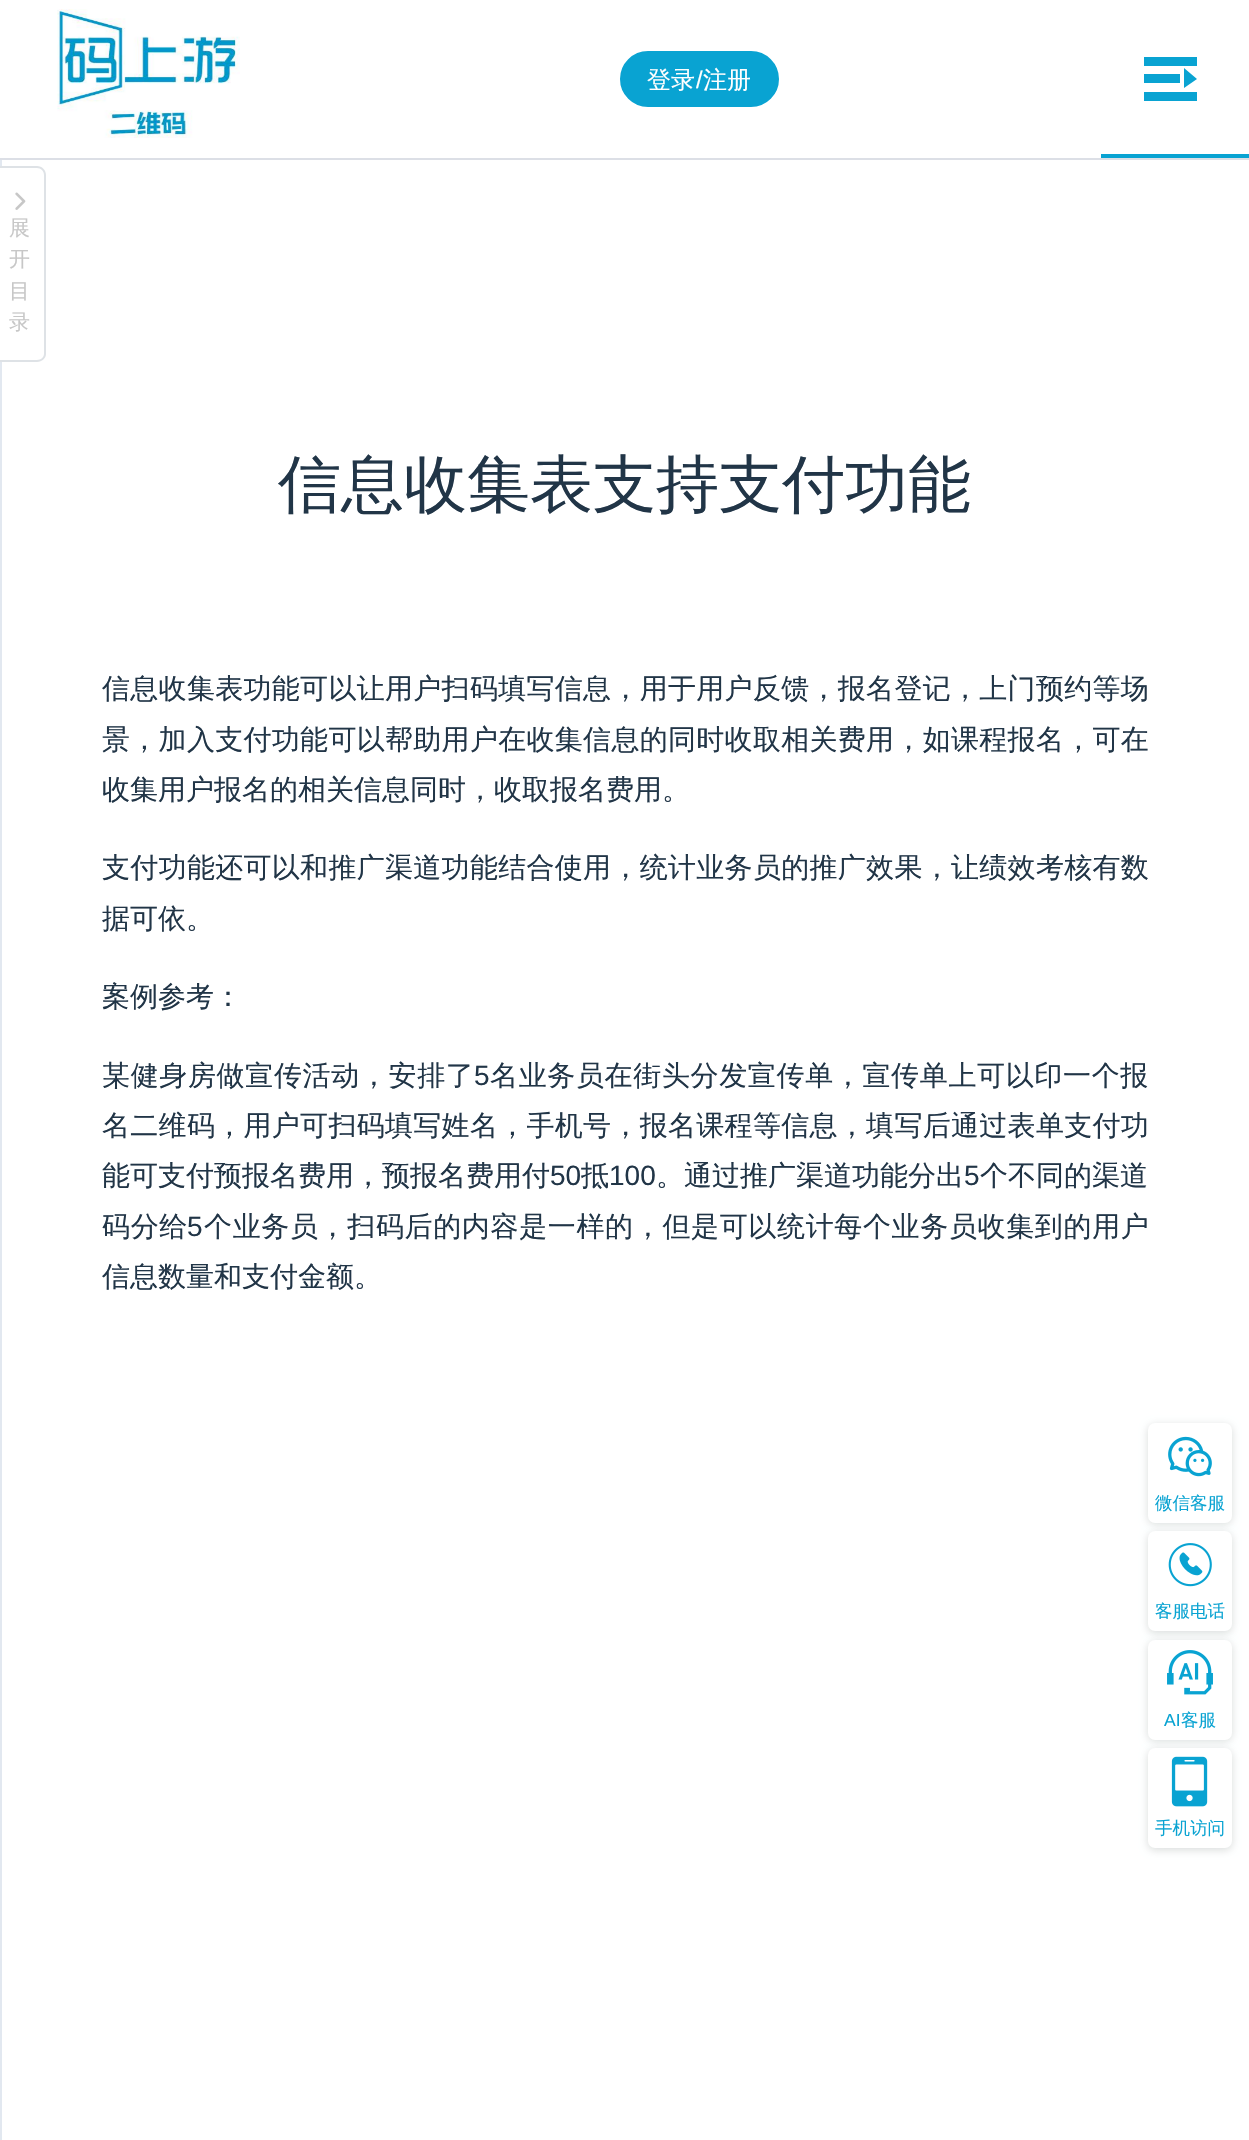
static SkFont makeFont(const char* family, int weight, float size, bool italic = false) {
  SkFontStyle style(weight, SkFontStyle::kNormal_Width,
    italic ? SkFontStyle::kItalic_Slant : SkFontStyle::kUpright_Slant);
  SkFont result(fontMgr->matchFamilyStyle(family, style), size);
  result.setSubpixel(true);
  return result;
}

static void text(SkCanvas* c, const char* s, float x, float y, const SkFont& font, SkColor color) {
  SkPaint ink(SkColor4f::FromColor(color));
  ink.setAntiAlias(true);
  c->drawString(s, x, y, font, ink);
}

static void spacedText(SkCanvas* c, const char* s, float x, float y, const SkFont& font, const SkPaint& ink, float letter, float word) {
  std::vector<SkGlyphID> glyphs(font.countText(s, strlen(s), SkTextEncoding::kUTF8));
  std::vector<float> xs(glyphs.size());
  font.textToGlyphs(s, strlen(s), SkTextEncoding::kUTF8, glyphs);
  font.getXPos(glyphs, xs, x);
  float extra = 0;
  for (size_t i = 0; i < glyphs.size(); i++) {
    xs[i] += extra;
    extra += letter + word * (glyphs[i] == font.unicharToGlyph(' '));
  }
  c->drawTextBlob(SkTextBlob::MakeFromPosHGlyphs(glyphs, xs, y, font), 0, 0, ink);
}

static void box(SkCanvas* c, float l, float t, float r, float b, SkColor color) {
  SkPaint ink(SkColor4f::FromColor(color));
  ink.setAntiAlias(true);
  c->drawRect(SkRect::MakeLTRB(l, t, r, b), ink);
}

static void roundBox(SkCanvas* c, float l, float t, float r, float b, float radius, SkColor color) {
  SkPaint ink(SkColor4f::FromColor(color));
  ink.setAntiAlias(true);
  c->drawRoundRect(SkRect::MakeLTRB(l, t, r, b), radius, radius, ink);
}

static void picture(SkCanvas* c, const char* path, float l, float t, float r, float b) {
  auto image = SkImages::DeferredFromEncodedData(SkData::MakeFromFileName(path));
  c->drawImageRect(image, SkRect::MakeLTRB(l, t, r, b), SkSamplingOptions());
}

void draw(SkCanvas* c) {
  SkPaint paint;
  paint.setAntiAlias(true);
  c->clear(0xffffffff);
  box(c, 0, 158, 2, 2140, 0xffe2e8f0);
  box(c, 0, 158, 1249, 160, 0xffdcdfe6);
  picture(c, "img_01.png", 57, 9, 240, 138);
  paint.setColor(0xff09a3d2);
  c->drawRoundRect(SkRect::MakeLTRB(621, 52, 778, 106), 27, 27, paint);
  paint.setStyle(SkPaint::kStroke_Style);
  paint.setStrokeWidth(2);
  c->drawRoundRect(SkRect::MakeLTRB(621, 52, 778, 106), 27, 27, paint);
  SkFont face1 = makeFont("WenQuanYi Zen Hei", 500, 24);
  text(c, "登录", 647, 88, face1, 0xffffffff);
  SkFont face2 = makeFont("Liberation Sans", 400, 24);
  text(c, "/", 696, 88, face2, 0xffffffff);
  text(c, "注册", 703, 88, face1, 0xffffffff);
  box(c, 1101, 154, 1249, 158, 0xff09a3d2);
  paint.setStyle(SkPaint::kFill_Style);
  c->drawPath(SkPathBuilder().moveTo(1144, 57).lineTo(1197, 57).lineTo(1197, 66).lineTo(1144, 66).close().moveTo(1144, 74).lineTo(1180, 74).lineTo(1180, 83).lineTo(1144, 83).close().moveTo(1144, 92).lineTo(1197, 92).lineTo(1197, 101).lineTo(1144, 101).close().moveTo(1184, 68).lineTo(1197, 79).lineTo(1184, 88).close().detach(), paint);
  paint.setColor(0xffffffff);
  c->drawPath(SkPathBuilder().moveTo(0, 166).lineTo(37, 166).cubicTo(42, 166, 46, 170, 46, 175).lineTo(46, 353).cubicTo(46, 358, 42, 362, 37, 362).lineTo(0, 362).close().detach(), paint);
  paint.setColor(0xffdee2e6);
  c->drawPath(SkPathBuilder(SkPathFillType::kEvenOdd).moveTo(0, 166).lineTo(37, 166).cubicTo(42, 166, 46, 170, 46, 175).lineTo(46, 354).cubicTo(46, 358, 42, 362, 37, 362).lineTo(0, 362).close().moveTo(0, 168).lineTo(37, 168).cubicTo(41, 168, 44, 171, 44, 175).lineTo(44, 354).cubicTo(44, 357, 41, 360, 37, 360).lineTo(0, 360).close().detach(), paint);
  picture(c, "img_02.png", 15, 192, 26, 210);
  SkFont face3 = makeFont("WenQuanYi Zen Hei", 500, 21);
  text(c, "展", 9, 235, face3, 0xffc7c7c7);
  text(c, "开", 9, 266, face3, 0xffc7c7c7);
  text(c, "目", 9, 298, face3, 0xffc7c7c7);
  text(c, "录", 9, 329, face3, 0xffc7c7c7);
  SkFont face4 = makeFont("WenQuanYi Zen Hei", 500, 63);
  text(c, "信息收集表支持支付功能", 278, 506, face4, 0xff213547);
  SkFont face5 = makeFont("WenQuanYi Zen Hei", 500, 28);
  paint.setColor(0xff213547);
  spacedText(c, "信息收集表功能可以让用户扫码填写信息，用于用户反馈，报名登记，上门预约等场", 102, 698, face5, paint, 0.3f, 0);
  spacedText(c, "景，加入支付功能可以帮助用户在收集信息的同时收取相关费用，如课程报名，可在", 102, 749, face5, paint, 0.3f, 0);
  text(c, "收集用户报名的相关信息同时，收取报名费用。", 102, 799, face5, 0xff213547);
  spacedText(c, "支付功能还可以和推广渠道功能结合使用，统计业务员的推广效果，让绩效考核有数", 102, 877, face5, paint, 0.3f, 0);
  text(c, "据可依。", 102, 928, face5, 0xff213547);
  text(c, "案例参考：", 102, 1006, face5, 0xff213547);
  spacedText(c, "某健身房做宣传活动，安排了", 102, 1085, face5, paint, 0.65f, 0);
  SkFont face6 = makeFont("Liberation Sans", 400, 28);
  spacedText(c, "5", 474, 1085, face6, paint, 0.65f, 0);
  spacedText(c, "名业务员在街头分发宣传单，宣传单上可以印一个报", 490, 1085, face5, paint, 0.65f, 0);
  spacedText(c, "名二维码，用户可扫码填写姓名，手机号，报名课程等信息，填写后通过表单支付功", 102, 1135, face5, paint, 0.3f, 0);
  text(c, "能可支付预报名费用，预报名费用付", 102, 1185, face5, 0xff213547);
  text(c, "50", 550, 1185, face6, 0xff213547);
  text(c, "抵", 581, 1185, face5, 0xff213547);
  text(c, "100", 609, 1185, face6, 0xff213547);
  text(c, "。通过推广渠道功能分出", 656, 1185, face5, 0xff213547);
  text(c, "5", 964, 1185, face6, 0xff213547);
  text(c, "个不同的渠道", 980, 1185, face5, 0xff213547);
  spacedText(c, "码分给", 102, 1236, face5, paint, 0.65f, 0);
  spacedText(c, "5", 187, 1236, face6, paint, 0.65f, 0);
  spacedText(c, "个业务员，扫码后的内容是一样的，但是可以统计每个业务员收集到的用户", 204, 1236, face5, paint, 0.65f, 0);
  text(c, "信息数量和支付金额。", 102, 1286, face5, 0xff213547);
  paint.setColor(0x2600130b);
  paint.setMaskFilter(SkMaskFilter::MakeBlur(kNormal_SkBlurStyle, 4.5f));
  c->drawRoundRect(SkRect::MakeLTRB(1148, 1425, 1232, 1524), 7, 7, paint);
  paint.setMaskFilter(nullptr);
  roundBox(c, 1148, 1423, 1232, 1523, 7, 0xffffffff);
  picture(c, "img_03.png", 1168, 1436, 1212, 1477);
  SkFont face7 = makeFont("WenQuanYi Zen Hei", 500, 17.5f);
  text(c, "微信客服", 1155, 1509, face7, 0xff09a3d2);
  paint.setMaskFilter(SkMaskFilter::MakeBlur(kNormal_SkBlurStyle, 4.5f));
  c->drawRoundRect(SkRect::MakeLTRB(1148, 1533, 1232, 1633), 7, 7, paint);
  paint.setMaskFilter(nullptr);
  roundBox(c, 1148, 1531, 1232, 1631, 7, 0xffffffff);
  picture(c, "img_04.png", 1168, 1543, 1212, 1587);
  text(c, "客服电话", 1155, 1617, face7, 0xff09a3d2);
  paint.setMaskFilter(SkMaskFilter::MakeBlur(kNormal_SkBlurStyle, 4.5f));
  c->drawRoundRect(SkRect::MakeLTRB(1148, 1642, 1232, 1741), 7, 7, paint);
  paint.setMaskFilter(nullptr);
  roundBox(c, 1148, 1640, 1232, 1740, 7, 0xffffffff);
  picture(c, "img_05.png", 1167, 1650, 1213, 1695);
  SkFont face8 = makeFont("Liberation Sans", 400, 17.5f);
  text(c, "AI", 1164, 1726, face8, 0xff09a3d2);
  text(c, "客服", 1181, 1726, face7, 0xff09a3d2);
  paint.setMaskFilter(SkMaskFilter::MakeBlur(kNormal_SkBlurStyle, 4.5f));
  c->drawRoundRect(SkRect::MakeLTRB(1148, 1750, 1232, 1850), 7, 7, paint);
  paint.setMaskFilter(nullptr);
  roundBox(c, 1148, 1748, 1232, 1848, 7, 0xffffffff);
  picture(c, "img_06.png", 1171, 1756, 1208, 1807);
  text(c, "手机访问", 1155, 1834, face7, 0xff09a3d2);
}
